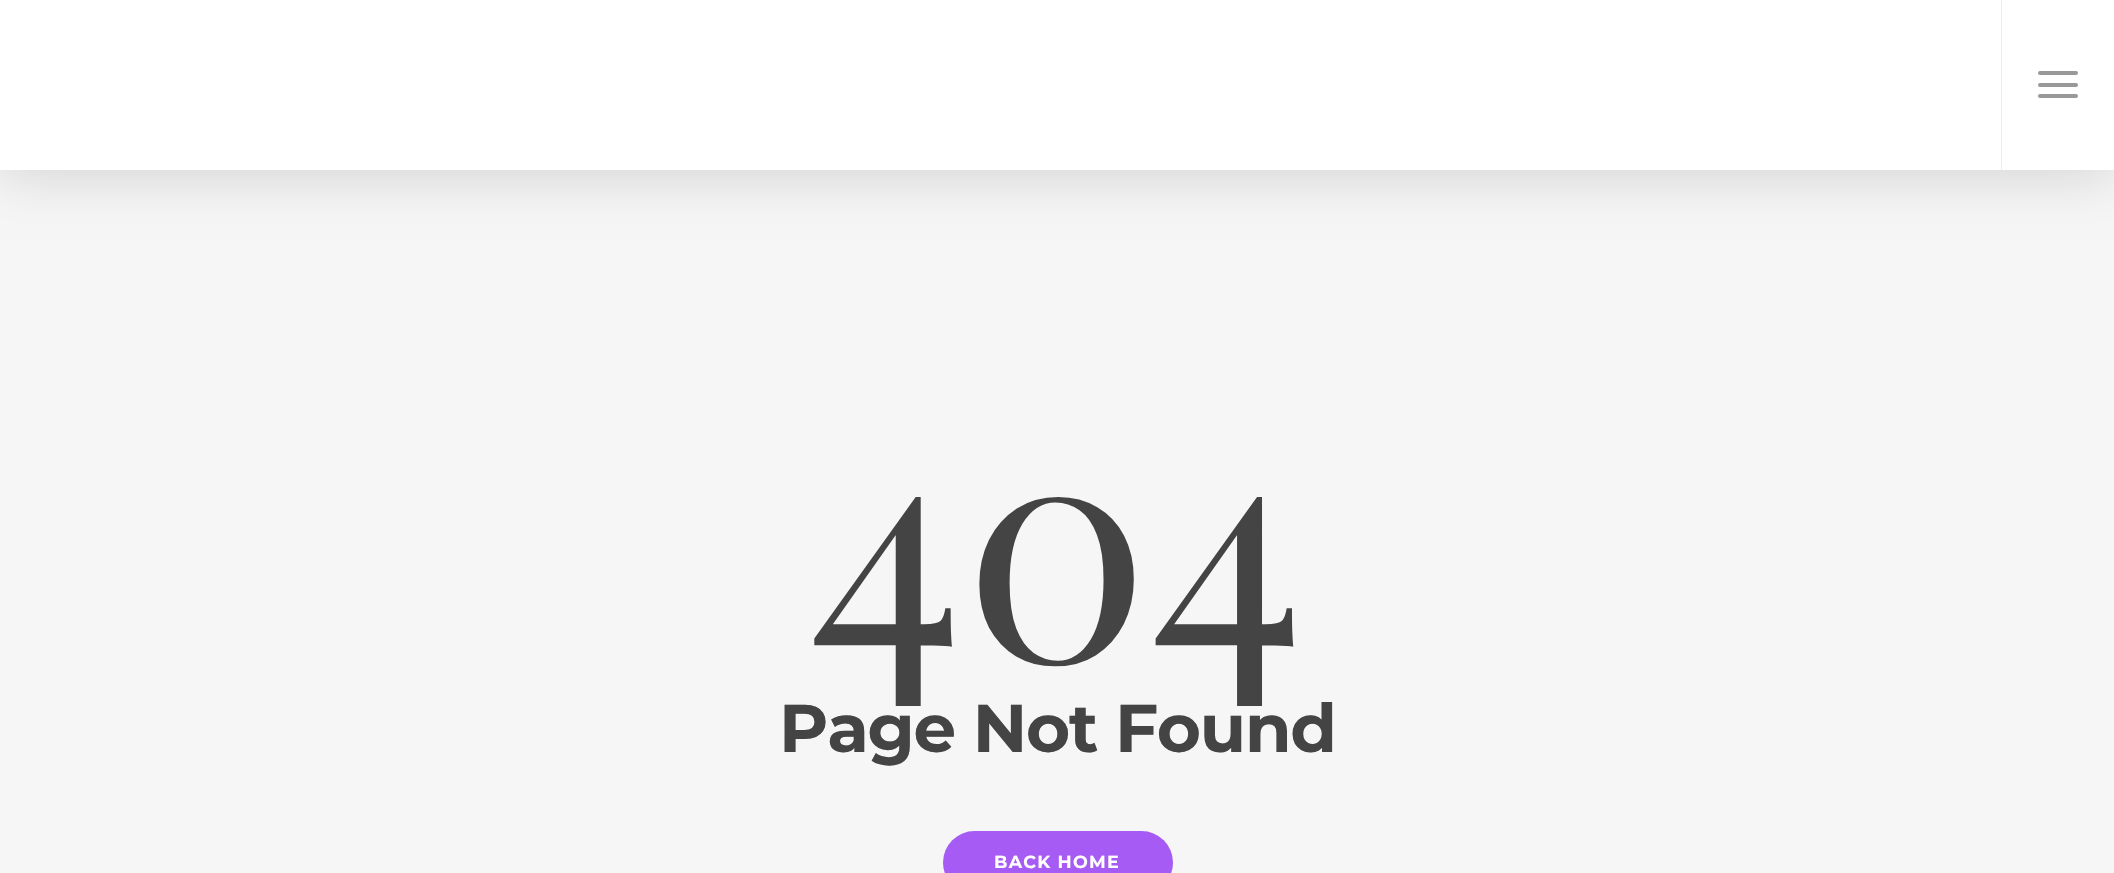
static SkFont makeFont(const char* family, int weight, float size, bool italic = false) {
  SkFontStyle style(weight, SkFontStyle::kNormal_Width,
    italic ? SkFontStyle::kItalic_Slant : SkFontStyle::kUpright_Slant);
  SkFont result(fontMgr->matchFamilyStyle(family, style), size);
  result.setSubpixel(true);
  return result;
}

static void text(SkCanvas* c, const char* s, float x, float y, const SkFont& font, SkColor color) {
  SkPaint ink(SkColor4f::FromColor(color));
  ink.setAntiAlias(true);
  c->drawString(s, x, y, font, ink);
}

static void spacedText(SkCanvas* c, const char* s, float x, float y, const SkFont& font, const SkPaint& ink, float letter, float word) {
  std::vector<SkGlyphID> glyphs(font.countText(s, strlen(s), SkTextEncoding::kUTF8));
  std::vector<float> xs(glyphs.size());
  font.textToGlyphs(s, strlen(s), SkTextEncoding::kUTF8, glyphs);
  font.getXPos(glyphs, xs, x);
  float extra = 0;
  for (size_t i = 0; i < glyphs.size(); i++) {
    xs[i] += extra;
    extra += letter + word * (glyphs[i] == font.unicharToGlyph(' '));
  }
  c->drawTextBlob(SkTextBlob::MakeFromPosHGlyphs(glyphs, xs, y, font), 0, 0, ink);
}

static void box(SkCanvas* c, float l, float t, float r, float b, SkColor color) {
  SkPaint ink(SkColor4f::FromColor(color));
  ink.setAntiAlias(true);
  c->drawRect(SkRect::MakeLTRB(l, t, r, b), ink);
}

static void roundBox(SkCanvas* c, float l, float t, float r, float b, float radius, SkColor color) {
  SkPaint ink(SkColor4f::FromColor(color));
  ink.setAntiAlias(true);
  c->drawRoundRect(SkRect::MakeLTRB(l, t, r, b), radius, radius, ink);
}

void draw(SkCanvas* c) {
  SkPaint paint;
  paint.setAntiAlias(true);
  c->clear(0xfff6f6f6);
  paint.setColor(0x26000000);
  paint.setMaskFilter(SkMaskFilter::MakeBlur(kNormal_SkBlurStyle, 28));
  c->drawRect(SkRect::MakeLTRB(0, 4, 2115, 174), paint);
  paint.setMaskFilter(nullptr);
  box(c, 0, 0, 2114, 170, 0xffffffff);
  box(c, 2001, 0, 2002, 170, 0xffededed);
  roundBox(c, 2038, 71, 2078, 75, 2, 0xff999999);
  roundBox(c, 2038, 94, 2078, 98, 2, 0xff999999);
  roundBox(c, 2038, 83, 2078, 87, 2, 0xff999999);
  SkFont face1 = makeFont("Playfair Display", 400, 312);
  text(c, "404", 809, 662, face1, 0xff444444);
  SkFont face2 = makeFont("Montserrat", 100, 67.5f);
  paint.setColor(0xff444444);
  spacedText(c, "Page Not Found", 779, 752, face2, paint, -1.25f, 0);
  roundBox(c, 943, 831, 1173, 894, 31.5f, 0xffa65bf4);
  SkFont face3 = makeFont("Montserrat", 100, 17.5f);
  paint.setColor(0xffffffff);
  spacedText(c, "BACK HOME", 994, 868, face3, paint, 1.25f, 0);
}
